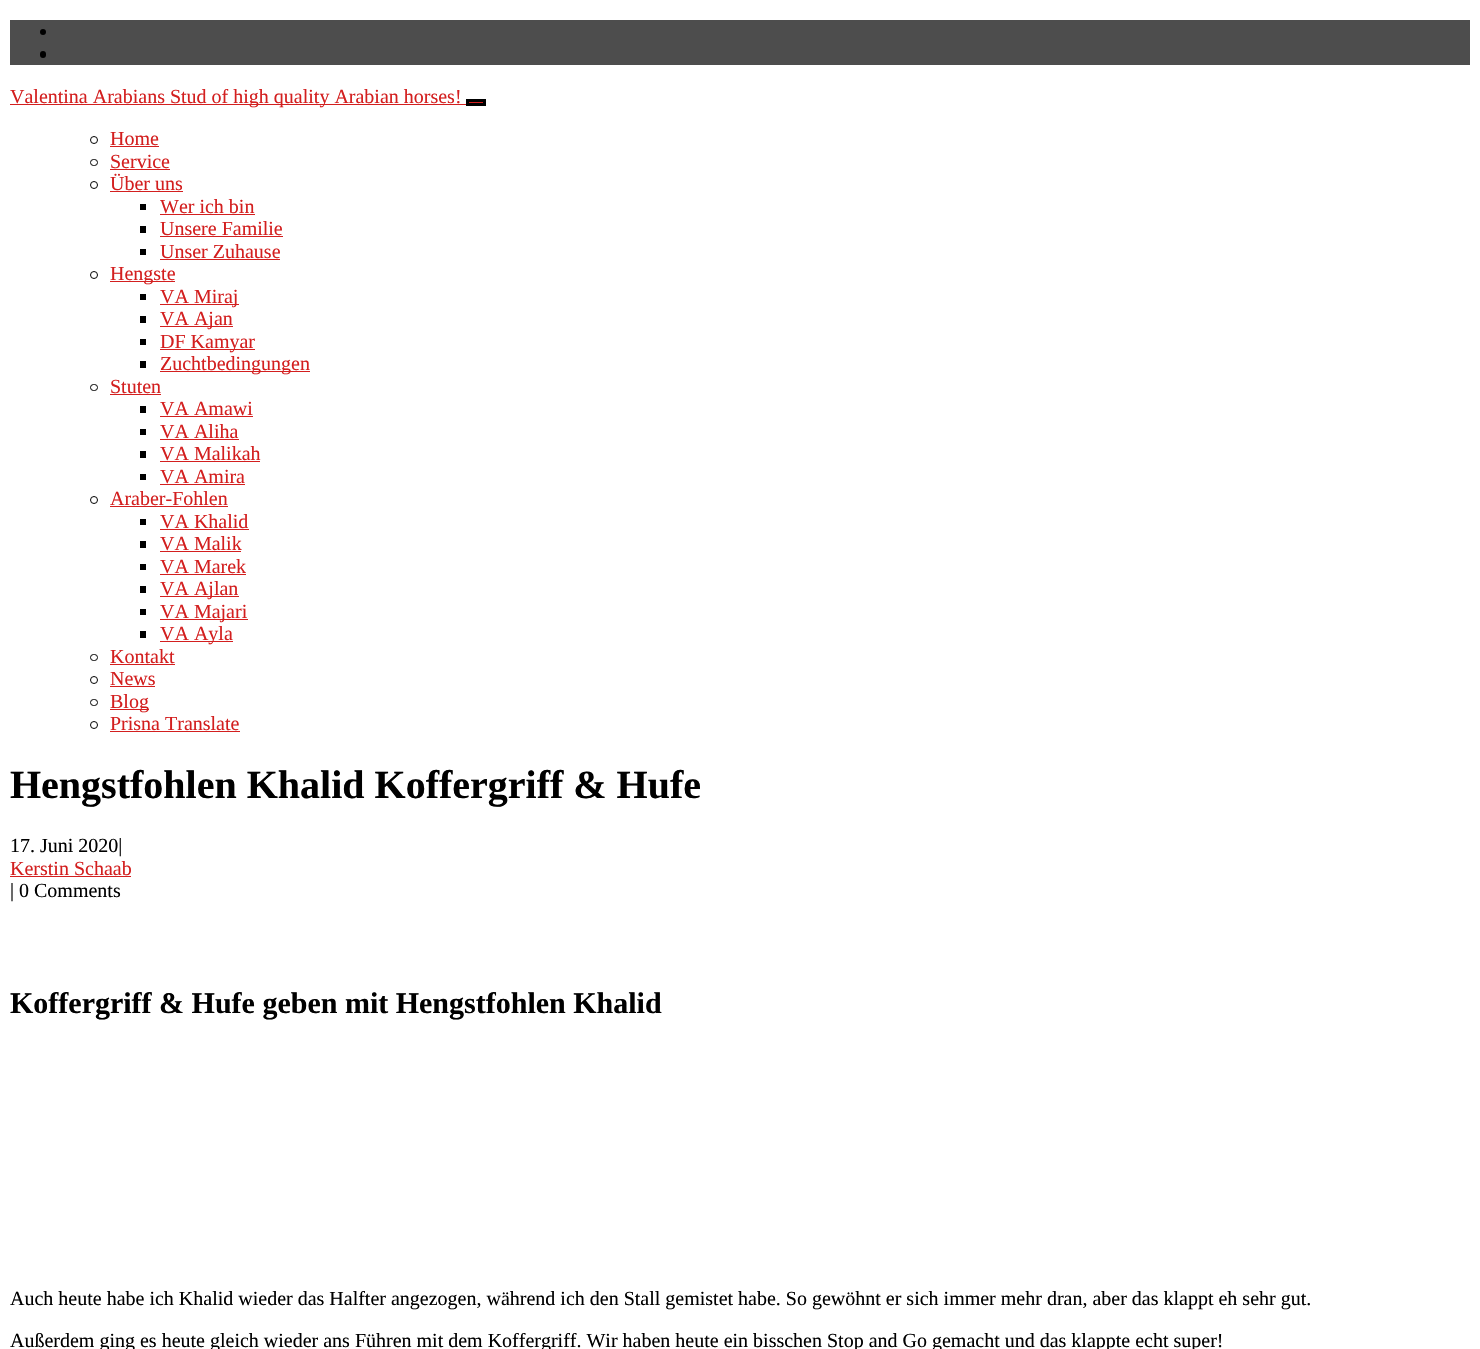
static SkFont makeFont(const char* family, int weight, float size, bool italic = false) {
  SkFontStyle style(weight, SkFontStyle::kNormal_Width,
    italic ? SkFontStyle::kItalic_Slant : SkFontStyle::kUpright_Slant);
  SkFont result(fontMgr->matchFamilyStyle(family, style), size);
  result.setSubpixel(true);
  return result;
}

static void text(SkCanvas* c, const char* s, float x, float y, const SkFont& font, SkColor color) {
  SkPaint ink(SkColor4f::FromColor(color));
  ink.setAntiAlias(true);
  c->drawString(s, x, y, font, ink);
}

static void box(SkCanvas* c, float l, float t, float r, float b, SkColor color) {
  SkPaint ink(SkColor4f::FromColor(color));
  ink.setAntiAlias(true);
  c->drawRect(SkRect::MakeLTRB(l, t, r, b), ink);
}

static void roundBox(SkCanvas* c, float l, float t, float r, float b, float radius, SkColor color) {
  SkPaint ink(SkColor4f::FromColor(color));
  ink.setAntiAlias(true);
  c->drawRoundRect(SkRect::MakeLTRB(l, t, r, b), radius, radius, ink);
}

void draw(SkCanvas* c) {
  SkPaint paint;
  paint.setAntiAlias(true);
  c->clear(0xffffffff);
  box(c, 10, 20, 1470, 65, 0xff4d4d4d);
  paint.setColor(0xff000000);
  c->drawCircle(43, 32, 3, paint);
  roundBox(c, 40, 51, 46, 58, 3, 0xff000000);
  box(c, 10, 104, 466, 105, 0xffd31f1f);
  SkFont face1 = makeFont("Liberation Serif", 400, 20);
  text(c, "Valentina Arabians Stud of high quality Arabian horses!", 10, 103, face1, 0xffd31f1f);
  paint.setColor(0xffd31f1f);
  c->drawRect(SkRect::MakeLTRB(467.5f, 100.5f, 484.5f, 104.5f), paint);
  paint.setStyle(SkPaint::kStroke_Style);
  paint.setStrokeWidth(3);
  paint.setColor(0xff000000);
  c->drawRect(SkRect::MakeLTRB(467.5f, 100.5f, 484.5f, 104.5f), paint);
  paint.setStrokeWidth(1);
  c->drawCircle(94, 140, 3.5f, paint);
  text(c, "Home", 110, 145, face1, 0xffd31f1f);
  box(c, 110, 146, 159, 147, 0xffd31f1f);
  c->drawRoundRect(SkRect::MakeLTRB(90.5f, 159.5f, 97.5f, 165.5f), 3, 3, paint);
  text(c, "Service", 110, 168, face1, 0xffd31f1f);
  box(c, 110, 169, 170, 170, 0xffd31f1f);
  c->drawCircle(94, 185, 3.5f, paint);
  text(c, "Über uns", 110, 190, face1, 0xffd31f1f);
  box(c, 110, 191, 183, 192, 0xffd31f1f);
  box(c, 140, 204, 146, 210, 0xff000000);
  text(c, "Wer ich bin", 160, 213, face1, 0xffd31f1f);
  box(c, 160, 214, 255, 215, 0xffd31f1f);
  box(c, 140, 226, 146, 233, 0xff000000);
  text(c, "Unsere Familie", 160, 235, face1, 0xffd31f1f);
  box(c, 160, 236, 283, 237, 0xffd31f1f);
  box(c, 140, 249, 146, 255, 0xff000000);
  text(c, "Unser Zuhause", 160, 258, face1, 0xffd31f1f);
  box(c, 160, 259, 280, 260, 0xffd31f1f);
  c->drawCircle(94, 275, 3.5f, paint);
  box(c, 110, 281, 175, 282, 0xffd31f1f);
  text(c, "Hengste", 110, 280, face1, 0xffd31f1f);
  box(c, 140, 294, 146, 300, 0xff000000);
  box(c, 160, 304, 239, 305, 0xffd31f1f);
  text(c, "VA Miraj", 160, 303, face1, 0xffd31f1f);
  box(c, 140, 316, 146, 323, 0xff000000);
  box(c, 160, 326, 233, 327, 0xffd31f1f);
  text(c, "VA Ajan", 160, 325, face1, 0xffd31f1f);
  box(c, 140, 339, 146, 345, 0xff000000);
  box(c, 160, 349, 255, 350, 0xffd31f1f);
  text(c, "DF Kamyar", 160, 348, face1, 0xffd31f1f);
  box(c, 140, 361, 146, 368, 0xff000000);
  box(c, 160, 371, 310, 372, 0xffd31f1f);
  text(c, "Zuchtbedingungen", 160, 370, face1, 0xffd31f1f);
  c->drawRoundRect(SkRect::MakeLTRB(90.5f, 384.5f, 97.5f, 390.5f), 3, 3, paint);
  text(c, "Stuten", 110, 393, face1, 0xffd31f1f);
  box(c, 110, 394, 161, 395, 0xffd31f1f);
  box(c, 140, 406, 146, 413, 0xff000000);
  text(c, "VA Amawi", 160, 415, face1, 0xffd31f1f);
  box(c, 160, 416, 253, 417, 0xffd31f1f);
  box(c, 140, 429, 146, 435, 0xff000000);
  text(c, "VA Aliha", 160, 438, face1, 0xffd31f1f);
  box(c, 160, 439, 239, 440, 0xffd31f1f);
  box(c, 140, 451, 146, 458, 0xff000000);
  text(c, "VA Malikah", 160, 460, face1, 0xffd31f1f);
  box(c, 160, 461, 260, 462, 0xffd31f1f);
  box(c, 140, 474, 146, 480, 0xff000000);
  text(c, "VA Amira", 160, 483, face1, 0xffd31f1f);
  box(c, 160, 484, 245, 485, 0xffd31f1f);
  c->drawCircle(94, 500, 3.5f, paint);
  text(c, "Araber-Fohlen", 110, 505, face1, 0xffd31f1f);
  box(c, 110, 506, 228, 507, 0xffd31f1f);
  box(c, 140, 519, 146, 525, 0xff000000);
  text(c, "VA Khalid", 160, 528, face1, 0xffd31f1f);
  box(c, 160, 529, 249, 530, 0xffd31f1f);
  box(c, 140, 541, 146, 548, 0xff000000);
  text(c, "VA Malik", 160, 550, face1, 0xffd31f1f);
  box(c, 160, 551, 241, 552, 0xffd31f1f);
  box(c, 140, 564, 146, 570, 0xff000000);
  text(c, "VA Marek", 160, 573, face1, 0xffd31f1f);
  box(c, 160, 574, 246, 575, 0xffd31f1f);
  box(c, 140, 586, 146, 593, 0xff000000);
  box(c, 160, 596, 239, 597, 0xffd31f1f);
  text(c, "VA Ajlan", 160, 595, face1, 0xffd31f1f);
  box(c, 140, 609, 146, 615, 0xff000000);
  box(c, 160, 619, 248, 620, 0xffd31f1f);
  text(c, "VA Majari", 160, 618, face1, 0xffd31f1f);
  box(c, 140, 631, 146, 638, 0xff000000);
  box(c, 160, 641, 233, 642, 0xffd31f1f);
  text(c, "VA Ayla", 160, 640, face1, 0xffd31f1f);
  c->drawRoundRect(SkRect::MakeLTRB(90.5f, 654.5f, 97.5f, 660.5f), 3, 3, paint);
  text(c, "Kontakt", 110, 663, face1, 0xffd31f1f);
  box(c, 110, 664, 175, 665, 0xffd31f1f);
  c->drawCircle(94, 680, 3.5f, paint);
  text(c, "News", 110, 685, face1, 0xffd31f1f);
  box(c, 110, 686, 155, 687, 0xffd31f1f);
  c->drawRoundRect(SkRect::MakeLTRB(90.5f, 699.5f, 97.5f, 705.5f), 3, 3, paint);
  box(c, 110, 709, 149, 710, 0xffd31f1f);
  text(c, "Blog", 110, 708, face1, 0xffd31f1f);
  c->drawCircle(94, 725, 3.5f, paint);
  text(c, "Prisna Translate", 110, 730, face1, 0xffd31f1f);
  box(c, 110, 731, 240, 732, 0xffd31f1f);
  SkFont face2 = makeFont("Liberation Serif", 700, 40);
  text(c, "Hengstfohlen Khalid Koffergriff & Hufe", 10, 798, face2, 0xff000000);
  text(c, "17. Juni 2020|", 10, 852, face1, 0xff000000);
  text(c, "Kerstin Schaab", 10, 875, face1, 0xffd31f1f);
  box(c, 10, 876, 131, 877, 0xffd31f1f);
  text(c, "| 0 Comments", 10, 897, face1, 0xff000000);
  SkFont face3 = makeFont("Liberation Serif", 700, 30);
  text(c, "Koffergriff & Hufe geben mit Hengstfohlen Khalid", 10, 1013, face3, 0xff000000);
  text(c, "Auch heute habe ich Khalid wieder das Halfter angezogen, während ich den Stall gemistet habe. So gewöhnt er sich immer mehr dran, aber das klappt eh sehr gut.", 10, 1305, face1, 0xff000000);
  text(c, "Außerdem ging es heute gleich wieder ans Führen mit dem Koffergriff. Wir haben heute ein bisschen Stop and Go gemacht und das klappte echt super!", 10, 1347, face1, 0xff000000);
}
